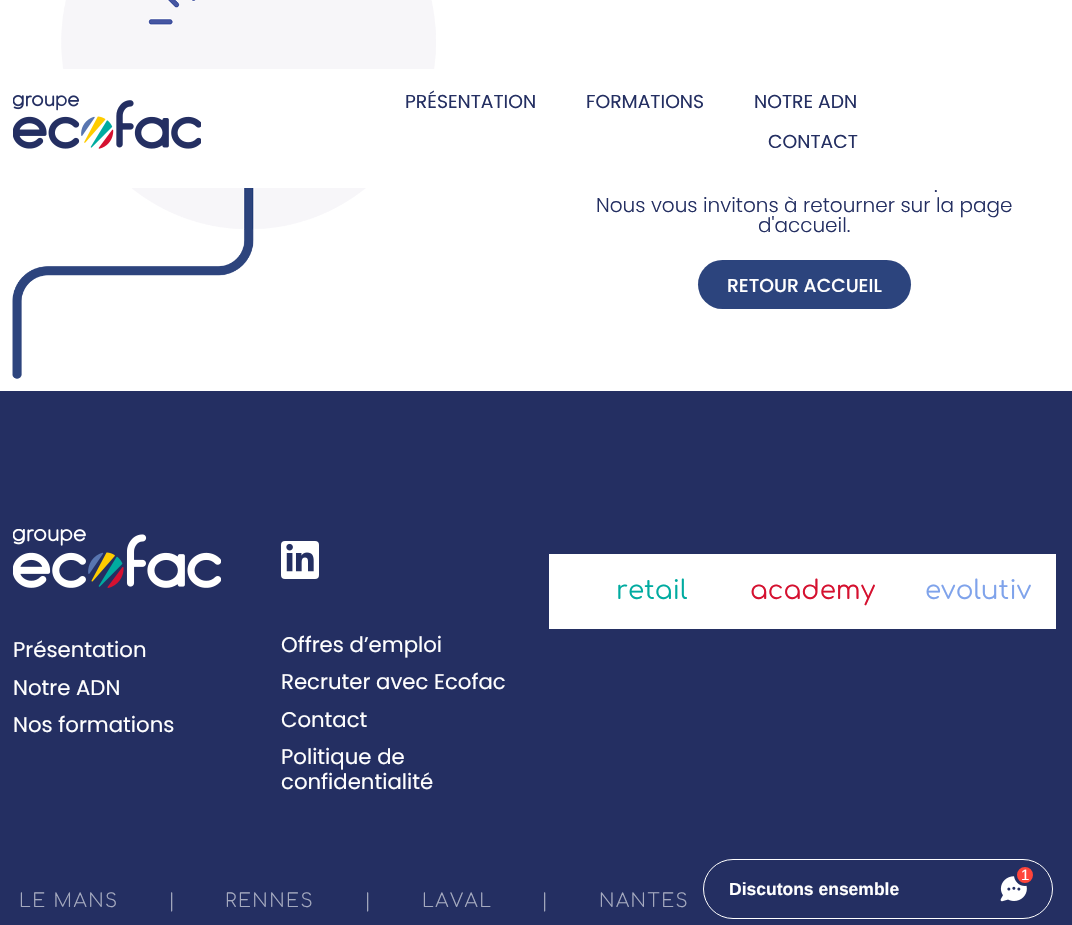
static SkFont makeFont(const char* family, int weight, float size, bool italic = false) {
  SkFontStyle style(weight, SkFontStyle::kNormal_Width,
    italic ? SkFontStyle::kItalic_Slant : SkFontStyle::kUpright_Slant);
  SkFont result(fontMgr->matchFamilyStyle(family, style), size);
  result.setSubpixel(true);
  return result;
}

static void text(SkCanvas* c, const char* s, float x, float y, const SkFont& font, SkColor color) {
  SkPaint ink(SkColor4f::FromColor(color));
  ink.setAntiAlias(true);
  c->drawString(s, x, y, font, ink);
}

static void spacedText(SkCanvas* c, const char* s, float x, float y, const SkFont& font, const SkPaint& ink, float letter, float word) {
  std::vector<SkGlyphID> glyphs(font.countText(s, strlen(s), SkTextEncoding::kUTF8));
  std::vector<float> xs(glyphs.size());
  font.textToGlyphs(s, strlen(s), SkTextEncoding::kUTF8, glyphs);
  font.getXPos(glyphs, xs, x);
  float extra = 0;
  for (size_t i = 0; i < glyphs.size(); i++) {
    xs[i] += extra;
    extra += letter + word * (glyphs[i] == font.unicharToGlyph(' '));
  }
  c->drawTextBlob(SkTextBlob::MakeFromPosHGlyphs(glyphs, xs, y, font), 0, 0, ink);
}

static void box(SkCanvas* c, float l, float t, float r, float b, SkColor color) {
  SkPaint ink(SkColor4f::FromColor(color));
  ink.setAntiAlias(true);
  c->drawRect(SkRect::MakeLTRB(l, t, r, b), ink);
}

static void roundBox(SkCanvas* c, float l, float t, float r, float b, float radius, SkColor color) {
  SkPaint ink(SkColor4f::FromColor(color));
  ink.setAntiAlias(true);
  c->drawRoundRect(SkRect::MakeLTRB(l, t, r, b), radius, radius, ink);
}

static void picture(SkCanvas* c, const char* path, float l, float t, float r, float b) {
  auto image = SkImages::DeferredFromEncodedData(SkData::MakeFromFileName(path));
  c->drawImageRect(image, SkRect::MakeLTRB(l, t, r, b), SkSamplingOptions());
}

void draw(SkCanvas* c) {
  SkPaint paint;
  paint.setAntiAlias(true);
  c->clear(0xffffffff);
  picture(c, "img_02.png", 12, 0, 436, 379);
  box(c, 63, 69, 434, 188, 0xffffffff);
  picture(c, "img_01.png", 13, 95, 201, 149);
  SkFont face1 = makeFont("Poppins", 400, 18.75f);
  text(c, "PRÉSENTATION", 405, 108, face1, 0xff242f62);
  text(c, "FORMATIONS", 586, 108, face1, 0xff242f62);
  text(c, "NOTRE ADN", 754, 108, face1, 0xff242f62);
  text(c, "CONTACT", 768, 148, face1, 0xff242f62);
  SkFont face2 = makeFont("Poppins", 300, 20);
  text(c, ".", 934, 192, face2, 0xff242f62);
  text(c, "Nous vous invitons à retourner sur la page", 596, 212, face2, 0xff242f62);
  text(c, "d'accueil.", 758, 232, face2, 0xff242f62);
  roundBox(c, 698, 260, 911, 309, 24.5f, 0xff2c447d);
  SkFont face3 = makeFont("Poppins", 500, 18.75f);
  text(c, "RETOUR ACCUEIL", 727, 292, face3, 0xffffffff);
  box(c, 0, 391, 1072, 925, 0xff242f62);
  box(c, 549, 554, 1056, 629, 0xffffffff);
  SkFont face4 = makeFont("Comfortaa", 400, 26.25f);
  text(c, "retail", 616, 599, face4, 0xff00aba0);
  text(c, "academy", 750, 599, face4, 0xffd51130);
  text(c, "evolutiv", 925, 599, face4, 0xff7fa3eb);
  picture(c, "img_03.png", 13, 529, 221, 588);
  SkFont face5 = makeFont("Poppins", 400, 21.25f);
  text(c, "Présentation", 13, 657, face5, 0xffffffff);
  text(c, "Notre ADN", 13, 695, face5, 0xffffffff);
  text(c, "Nos formations", 13, 732, face5, 0xffffffff);
  roundBox(c, 281, 541, 319, 579, 4, 0xffffffff);
  picture(c, "img_04.png", 286, 543, 314, 572);
  text(c, "Offres d’emploi", 281, 652, face5, 0xffffffff);
  text(c, "Recruter avec Ecofac", 281, 689, face5, 0xffffffff);
  text(c, "Contact", 281, 727, face5, 0xffffffff);
  text(c, "Politique de", 281, 764, face5, 0xffffffff);
  text(c, "confidentialité", 281, 789, face5, 0xffffffff);
  SkFont face6 = makeFont("Comfortaa", 300, 18.75f);
  paint.setColor(0xffa5aabf);
  spacedText(c, "LE MANS", 19, 907, face6, paint, 1.5f, 0);
  spacedText(c, "|", 168, 907, face6, paint, 1.5f, 0);
  spacedText(c, "RENNES", 225, 907, face6, paint, 1.5f, 0);
  spacedText(c, "|", 364, 907, face6, paint, 1.5f, 0);
  spacedText(c, "LAVAL", 422, 907, face6, paint, 1.5f, 0);
  spacedText(c, "|", 541, 907, face6, paint, 1.5f, 0);
  spacedText(c, "NANTES", 599, 907, face6, paint, 1.5f, 0);
  paint.setStyle(SkPaint::kStroke_Style);
  paint.setStrokeWidth(1);
  paint.setColor(0xffffffff);
  c->drawRoundRect(SkRect::MakeLTRB(703.5f, 859.5f, 1052.5f, 918.5f), 29.5f, 29.5f, paint);
  picture(c, "img_05.png", 1000, 876, 1027, 902);
  paint.setStyle(SkPaint::kFill_Style);
  paint.setColor(0xffff443a);
  c->drawCircle(1025, 875, 9.5f, paint);
  paint.setStyle(SkPaint::kStroke_Style);
  paint.setStrokeWidth(3);
  paint.setColor(0xff242f62);
  c->drawCircle(1025, 875, 9.5f, paint);
  SkFont face7 = makeFont("Liberation Sans", 400, 15);
  text(c, "1", 1021, 880, face7, 0xffffffff);
  SkFont face8 = makeFont("Liberation Sans", 700, 17.5f);
  text(c, "Discutons ensemble", 729, 895, face8, 0xffffffff);
}
